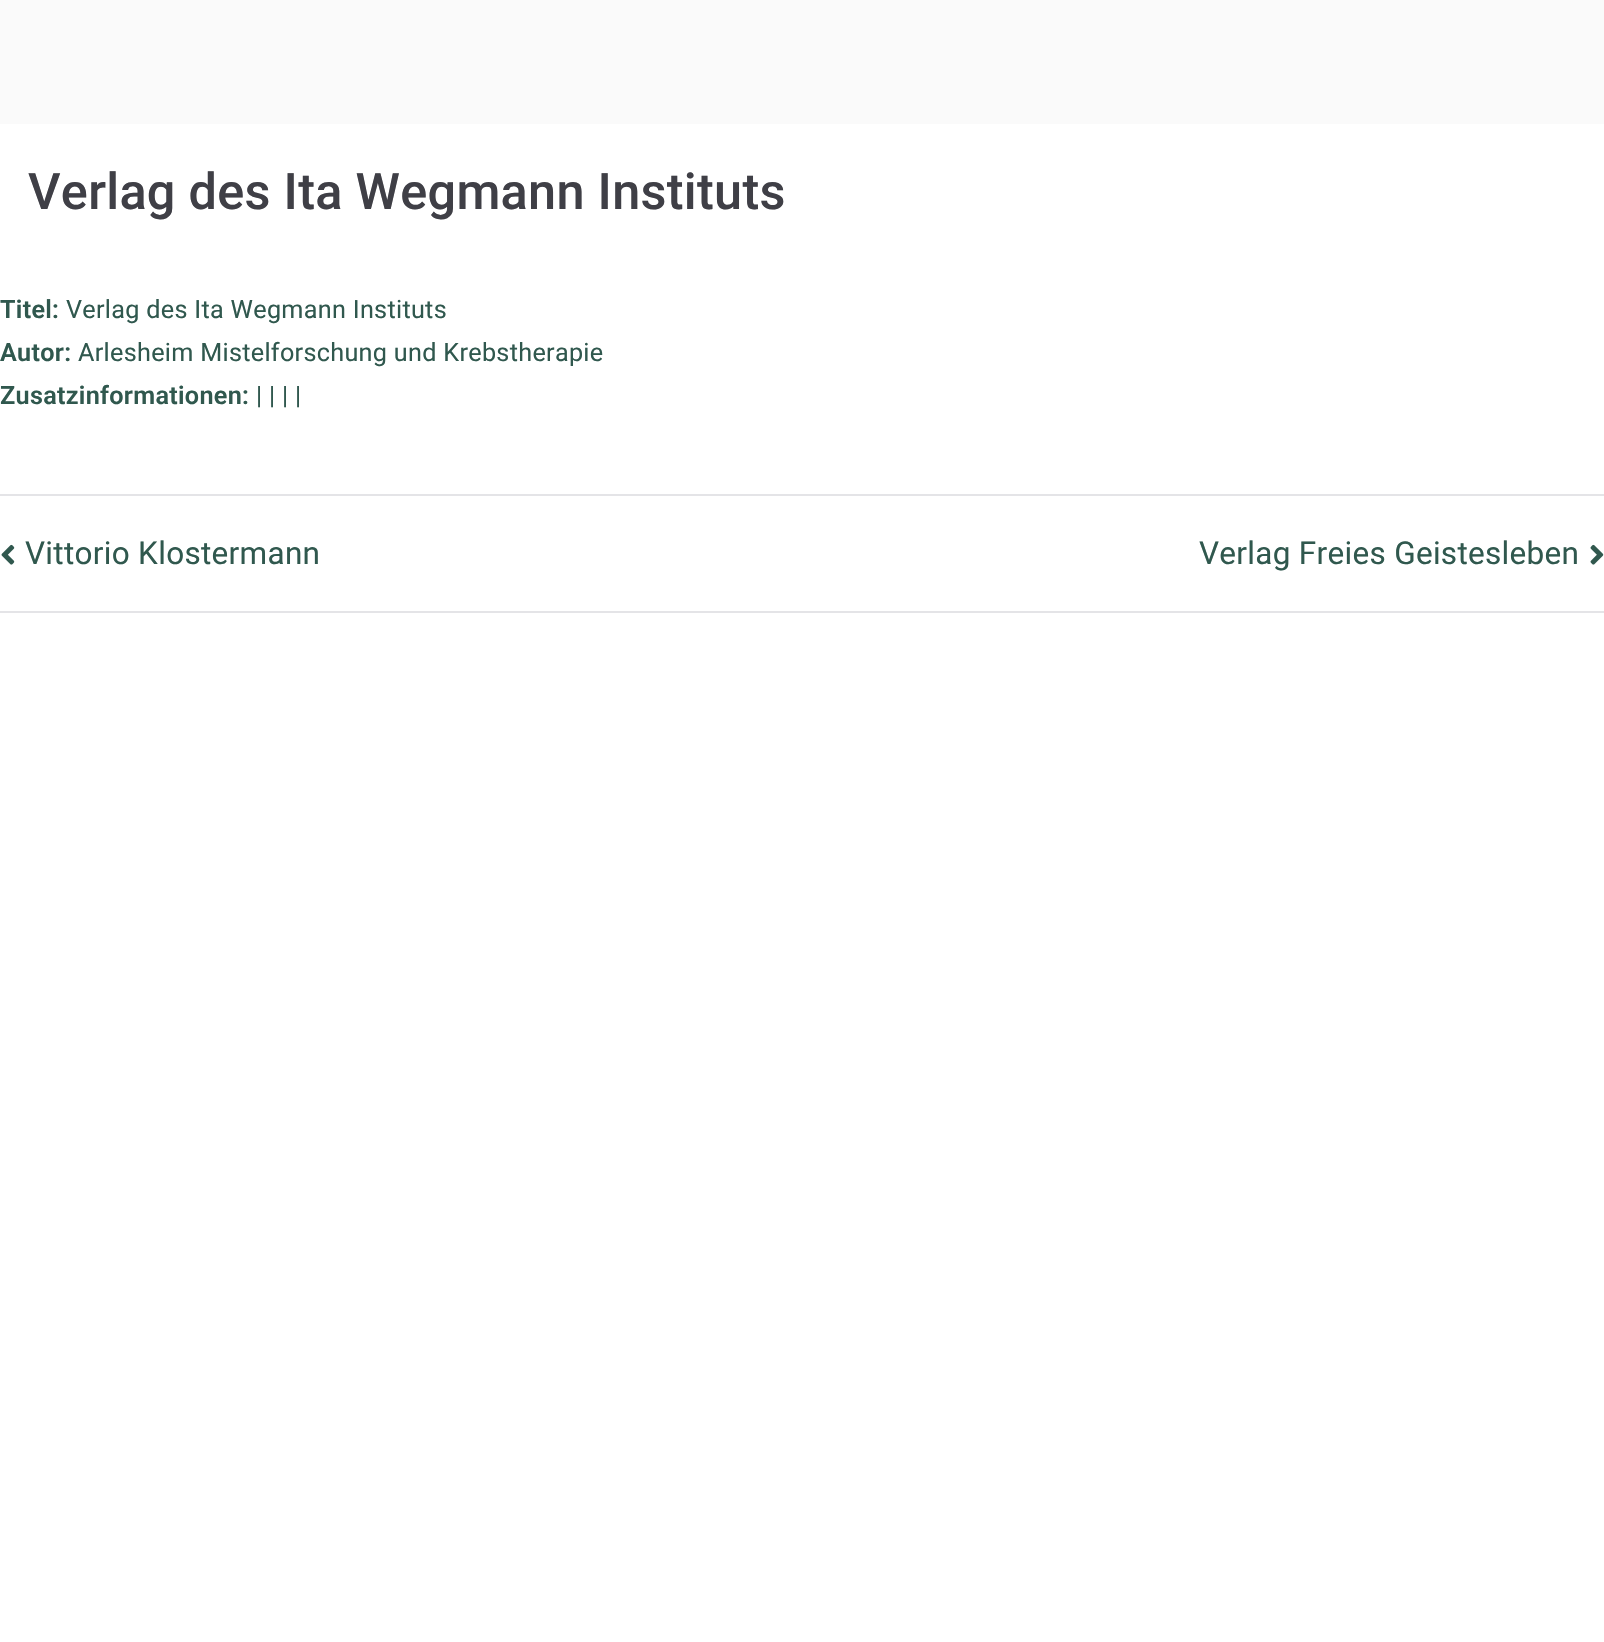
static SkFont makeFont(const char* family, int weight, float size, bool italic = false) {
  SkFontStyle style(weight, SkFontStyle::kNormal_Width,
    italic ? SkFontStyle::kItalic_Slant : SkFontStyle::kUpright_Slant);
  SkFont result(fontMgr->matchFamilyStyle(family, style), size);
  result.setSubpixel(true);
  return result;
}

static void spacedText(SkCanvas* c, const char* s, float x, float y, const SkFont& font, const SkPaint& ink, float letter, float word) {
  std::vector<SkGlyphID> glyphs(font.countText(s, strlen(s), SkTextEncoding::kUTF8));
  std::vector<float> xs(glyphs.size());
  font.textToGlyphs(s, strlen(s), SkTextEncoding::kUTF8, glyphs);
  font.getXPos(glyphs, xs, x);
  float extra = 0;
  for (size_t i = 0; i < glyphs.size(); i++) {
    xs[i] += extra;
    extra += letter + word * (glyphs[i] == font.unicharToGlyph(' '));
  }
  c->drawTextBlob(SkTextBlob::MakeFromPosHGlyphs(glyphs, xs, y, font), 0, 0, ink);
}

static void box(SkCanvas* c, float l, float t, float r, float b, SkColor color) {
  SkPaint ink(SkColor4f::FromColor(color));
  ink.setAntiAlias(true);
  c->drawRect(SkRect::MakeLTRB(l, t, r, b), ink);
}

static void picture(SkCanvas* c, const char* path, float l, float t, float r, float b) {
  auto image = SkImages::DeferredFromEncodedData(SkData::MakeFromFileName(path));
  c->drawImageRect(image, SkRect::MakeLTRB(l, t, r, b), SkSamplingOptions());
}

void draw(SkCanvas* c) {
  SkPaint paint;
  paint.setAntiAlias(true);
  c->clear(0xfffafafa);
  box(c, 0, 124, 1604, 1642, 0xffffffff);
  SkFont face1 = makeFont("Roboto", 500, 50.4f);
  paint.setColor(0xff3f3f46);
  spacedText(c, "Verlag des Ita Wegmann Instituts", 28, 209, face1, paint, 0.3f, 0);
  SkFont face2 = makeFont("Roboto", 600, 25.2f);
  paint.setColor(0xff30584e);
  spacedText(c, "Titel:", 0, 318, face2, paint, 0.3f, 0);
  SkFont face3 = makeFont("Roboto", 400, 25.2f);
  spacedText(c, "Verlag des Ita Wegmann Instituts", 66, 318, face3, paint, 0.3f, 0);
  spacedText(c, "Autor:", 0, 361, face2, paint, 0.3f, 0);
  spacedText(c, "Arlesheim Mistelforschung und Krebstherapie", 78, 361, face3, paint, 0.3f, 0);
  spacedText(c, "Zusatzinformationen:", 0, 404, face2, paint, 0.3f, 0);
  spacedText(c, "| | | |", 256, 404, face3, paint, 0.3f, 0);
  box(c, 0, 494, 1604, 496, 0xffe4e4e7);
  box(c, 0, 611, 1604, 613, 0xffe4e4e7);
  picture(c, "img_01.png", 1, 544, 15, 565);
  SkFont face4 = makeFont("Roboto", 400, 31.5f);
  spacedText(c, "Vittorio Klostermann", 25, 564, face4, paint, 0.3f, 0);
  spacedText(c, "Verlag Freies Geistesleben", 1199, 564, face4, paint, 0.3f, 0);
  picture(c, "img_02.png", 1590, 544, 1604, 565);
}
